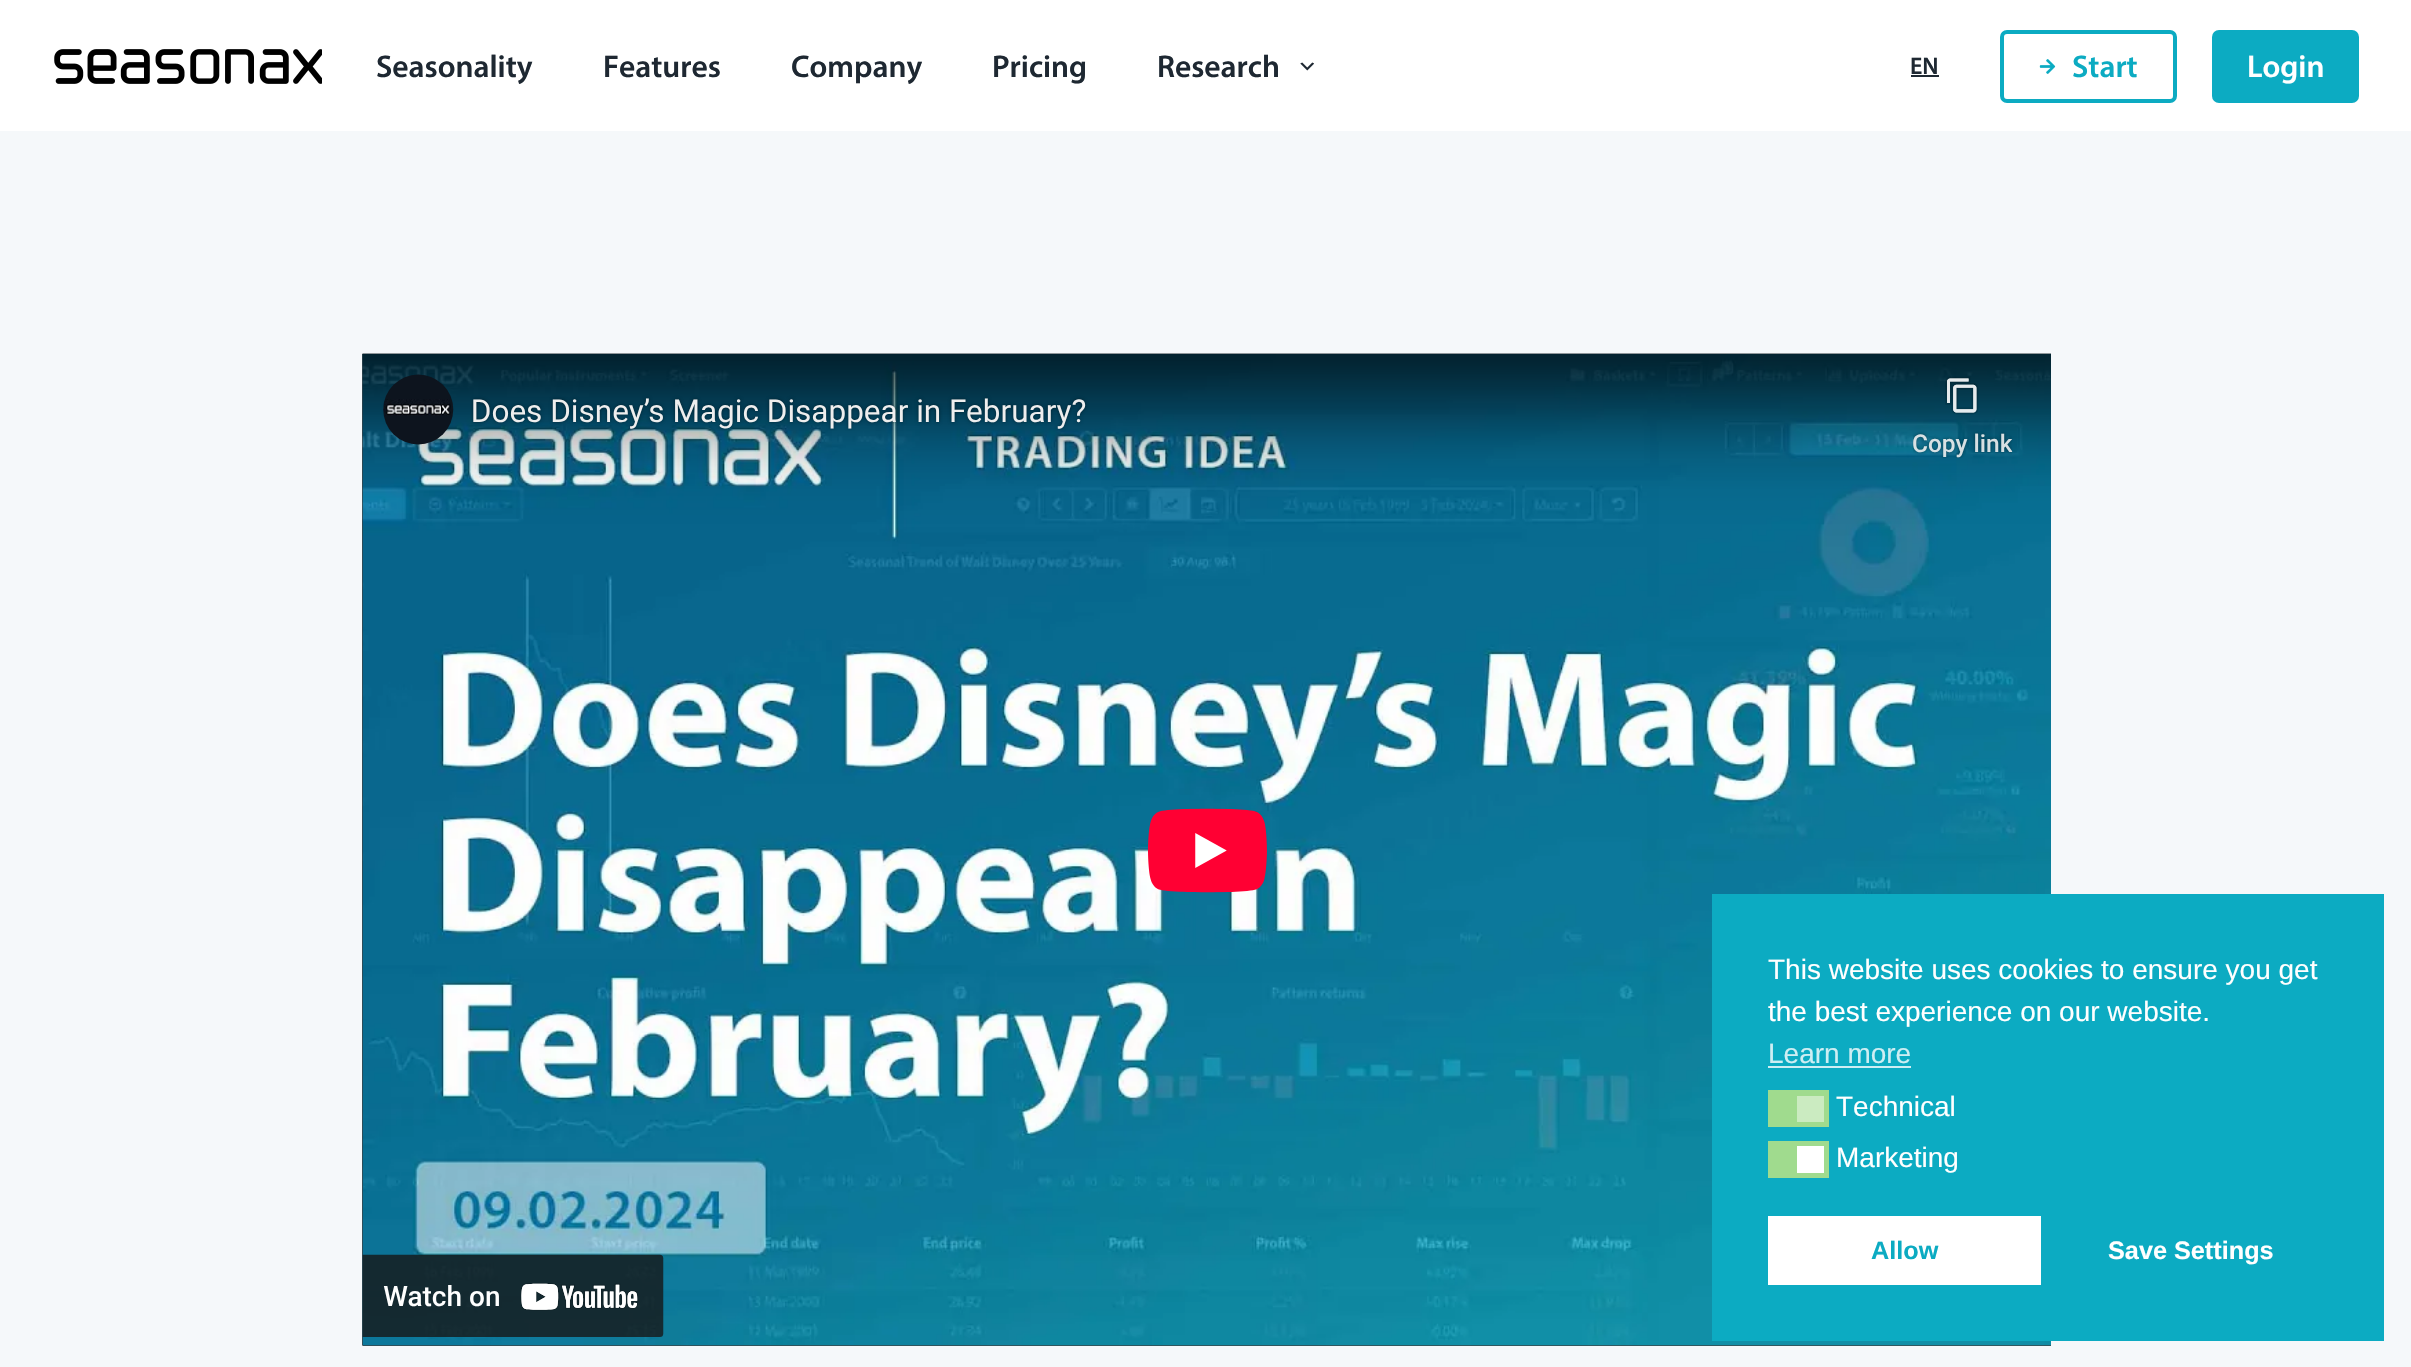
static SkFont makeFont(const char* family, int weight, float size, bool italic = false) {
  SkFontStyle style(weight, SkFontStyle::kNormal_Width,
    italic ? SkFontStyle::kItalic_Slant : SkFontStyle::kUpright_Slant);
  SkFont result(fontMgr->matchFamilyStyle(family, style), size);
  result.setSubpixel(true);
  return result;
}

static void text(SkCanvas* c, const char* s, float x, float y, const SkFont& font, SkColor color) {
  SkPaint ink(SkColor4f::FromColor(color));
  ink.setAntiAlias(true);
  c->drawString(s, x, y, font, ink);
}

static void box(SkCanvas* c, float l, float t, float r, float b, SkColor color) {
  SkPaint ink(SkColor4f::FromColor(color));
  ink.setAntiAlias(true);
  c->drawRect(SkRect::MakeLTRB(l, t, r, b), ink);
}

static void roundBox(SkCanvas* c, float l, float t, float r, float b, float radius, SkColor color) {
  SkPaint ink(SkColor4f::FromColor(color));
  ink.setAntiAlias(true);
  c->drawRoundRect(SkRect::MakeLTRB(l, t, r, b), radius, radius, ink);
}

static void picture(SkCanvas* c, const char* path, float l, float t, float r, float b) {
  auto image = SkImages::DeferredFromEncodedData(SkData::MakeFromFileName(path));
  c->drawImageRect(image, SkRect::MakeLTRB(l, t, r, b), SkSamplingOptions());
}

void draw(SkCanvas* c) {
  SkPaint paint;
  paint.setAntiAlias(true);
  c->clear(0xfff5f8fa);
  box(c, 0, 0, 2411, 131, 0xffffffff);
  picture(c, "img_01.png", 54, 49, 322, 84);
  SkFont face1 = makeFont("Myriad", 600, 31.5f);
  text(c, "Seasonality", 376, 77, face1, 0xff1e2832);
  text(c, "Features", 603, 77, face1, 0xff1e2832);
  text(c, "Company", 791, 77, face1, 0xff1e2832);
  text(c, "Pricing", 992, 77, face1, 0xff1e2832);
  text(c, "Research", 1157, 77, face1, 0xff1e2832);
  picture(c, "img_02.png", 1300, 62, 1314, 71);
  SkFont face2 = makeFont("Myriad", 600, 24);
  text(c, "EN", 1910, 74, face2, 0xff1e2832);
  box(c, 1911, 75, 1939, 77, 0xff1e2832);
  paint.setStyle(SkPaint::kStroke_Style);
  paint.setStrokeWidth(4);
  paint.setColor(0xff0cabc2);
  c->drawRoundRect(SkRect::MakeLTRB(2002, 32, 2175, 101), 5, 5, paint);
  picture(c, "img_03.png", 2039, 59, 2056, 74);
  text(c, "Start", 2072, 77, face1, 0xff0cabc2);
  roundBox(c, 2212, 30, 2359, 103, 7, 0xff0cabc2);
  text(c, "Login", 2247, 77, face1, 0xffffffff);
  picture(c, "img_04.png", 362, 353, 2051, 1346);
  box(c, 1712, 894, 2384, 1341, 0xff0cabc2);
  SkFont face3 = makeFont("Liberation Sans", 400, 28);
  text(c, "This website uses cookies to ensure you get", 1768, 979, face3, 0xffffffff);
  text(c, "the best experience on our website.", 1768, 1021, face3, 0xffffffff);
  text(c, "Learn more", 1768, 1063, face3, 0xffceeef3);
  box(c, 1768, 1066, 1911, 1068, 0xffceeef3);
  box(c, 1768, 1090, 1829, 1127, 0xffa0db8e);
  box(c, 1797, 1096, 1824, 1122, 0xffcbebc1);
  text(c, "Technical", 1836, 1116, face3, 0xffffffff);
  box(c, 1768, 1141, 1829, 1178, 0xffa0db8e);
  box(c, 1797, 1146, 1824, 1173, 0xffffffff);
  text(c, "Marketing", 1836, 1167, face3, 0xffffffff);
  box(c, 1768, 1216, 2041, 1285, 0xffffffff);
  SkFont face4 = makeFont("Liberation Sans", 700, 25.25f);
  text(c, "Allow", 1871, 1259, face4, 0xff0cabc2);
  text(c, "Save Settings", 2108, 1259, face4, 0xffffffff);
}
